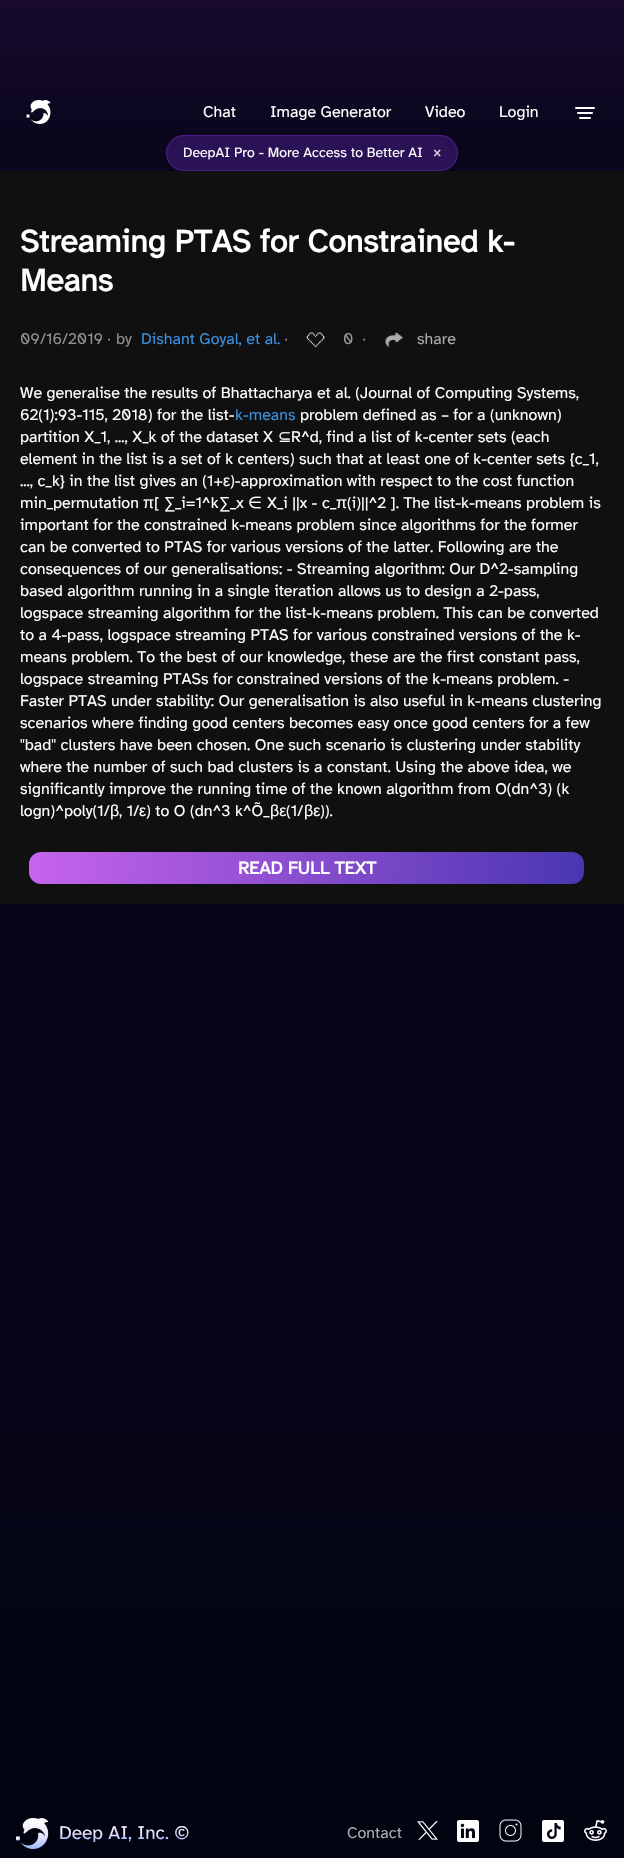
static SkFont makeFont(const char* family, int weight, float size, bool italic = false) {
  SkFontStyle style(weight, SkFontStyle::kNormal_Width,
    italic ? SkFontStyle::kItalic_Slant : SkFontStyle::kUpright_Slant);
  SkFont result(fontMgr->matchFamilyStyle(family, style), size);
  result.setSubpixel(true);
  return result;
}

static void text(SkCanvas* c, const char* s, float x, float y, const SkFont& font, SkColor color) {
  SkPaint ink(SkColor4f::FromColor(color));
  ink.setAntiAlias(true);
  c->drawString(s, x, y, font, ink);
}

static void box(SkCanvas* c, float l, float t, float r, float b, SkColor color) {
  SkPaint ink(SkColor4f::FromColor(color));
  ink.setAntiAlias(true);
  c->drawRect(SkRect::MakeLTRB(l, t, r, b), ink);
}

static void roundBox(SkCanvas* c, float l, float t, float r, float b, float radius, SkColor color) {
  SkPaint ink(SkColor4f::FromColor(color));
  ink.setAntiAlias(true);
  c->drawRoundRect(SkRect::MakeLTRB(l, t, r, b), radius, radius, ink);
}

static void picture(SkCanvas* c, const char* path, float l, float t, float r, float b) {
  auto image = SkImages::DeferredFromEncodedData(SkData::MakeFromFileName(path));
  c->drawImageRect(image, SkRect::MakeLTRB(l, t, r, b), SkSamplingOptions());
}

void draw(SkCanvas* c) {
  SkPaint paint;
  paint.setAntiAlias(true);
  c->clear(0xffffffff);
  {
    const SkColor colors[] = {0xff7729aa, 0xff170a2d, 0xff0a061d, 0xff0a061e, 0xff010311};
    const float stops[] = {0, 0.12f, 0.18f, 0.44f, 0.99f};
    const SkPoint ends[] = {{312, -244}, {312, 1858}};
    paint.setShader(SkGradientShader::MakeLinear(ends, colors, stops, 5, SkTileMode::kClamp));
    paint.setAlpha(255);
  }
  c->drawRect(SkRect::MakeLTRB(0, 0, 624, 1858), paint);
  picture(c, "img_01.png", 26, 100, 51, 124);
  SkFont face1 = makeFont("Atkinson Hyperlegible", 400, 16);
  text(c, "Chat", 203, 117, face1, 0xffffffff);
  text(c, "Image Generator", 270, 117, face1, 0xffffffff);
  text(c, "Video", 425, 117, face1, 0xffffffff);
  text(c, "Login", 499, 117, face1, 0xffffffff);
  paint.setStyle(SkPaint::kStroke_Style);
  paint.setStrokeWidth(2);
  paint.setStrokeCap(SkPaint::kRound_Cap);
  paint.setShader(nullptr);
  paint.setColor(0xffffffff);
  c->drawPath(SkPathBuilder().moveTo(576, 108).lineTo(594, 108).moveTo(578, 113).lineTo(592, 113).moveTo(580, 118).lineTo(590, 118).detach(), paint);
  roundBox(c, 166, 135, 458, 171, 18, 0xff2b1256);
  paint.setStrokeWidth(1);
  paint.setStrokeCap(SkPaint::kButt_Cap);
  paint.setColor(0x4d8f37ff);
  c->drawRoundRect(SkRect::MakeLTRB(166.5f, 135.5f, 457.5f, 170.5f), 17.5f, 17.5f, paint);
  SkFont face2 = makeFont("Atkinson Hyperlegible", 400, 14);
  text(c, "DeepAI Pro - More Access to Better AI", 183, 157, face2, 0xffffffff);
  text(c, "×", 433, 157, face1, 0xffd5d0dd);
  box(c, 0, 171, 624, 904, 0xff101010);
  SkFont face3 = makeFont("Atkinson Hyperlegible", 700, 32);
  text(c, "Streaming PTAS for Constrained k-", 20, 252, face3, 0xffffffff);
  text(c, "Means", 20, 291, face3, 0xffffffff);
  text(c, "09/16/2019", 20, 344, face1, 0xff919295);
  SkFont face4 = makeFont("Liberation Sans", 400, 16);
  text(c, "∙", 107, 344, face4, 0xff999999);
  text(c, "by", 116, 344, face1, 0xff919295);
  text(c, "Dishant Goyal, et al.", 141, 344, face1, 0xff3a90e0);
  text(c, "∙", 284, 344, face4, 0xff999999);
  picture(c, "img_02.png", 306, 332, 325, 348);
  text(c, "0", 343, 344, face1, 0xff999999);
  text(c, "∙", 362, 344, face4, 0xff999999);
  picture(c, "img_03.png", 385, 332, 404, 347);
  text(c, "share", 417, 344, face1, 0xffababab);
  text(c, "We generalise the results of Bhattacharya et al. (Journal of Computing Systems,", 20, 398, face1, 0xffffffff);
  text(c, "62(1):93-115, 2018) for the list-", 20, 420, face1, 0xffffffff);
  text(c, "k-means", 235, 420, face1, 0xff3a90e0);
  text(c, "problem defined as – for a (unknown)", 300, 420, face1, 0xffffffff);
  text(c, "partition X_1, ..., X_k of the dataset X", 20, 442, face1, 0xffffffff);
  SkFont face5 = makeFont("DejaVu Sans", 400, 16);
  text(c, "⊆", 278, 442, face5, 0xffffffff);
  text(c, "R^d, find a list of k-center sets (each", 291, 442, face1, 0xffffffff);
  text(c, "element in the list is a set of k centers) such that at least one of k-center sets {c_1,", 20, 464, face1, 0xffffffff);
  text(c, "..., c_k} in the list gives an (1+", 20, 486, face1, 0xffffffff);
  text(c, "ε", 223, 486, face4, 0xffffffff);
  text(c, ")-approximation with respect to the cost function", 230, 486, face1, 0xffffffff);
  text(c, "min_permutation", 20, 508, face1, 0xffffffff);
  text(c, "π", 143, 508, face4, 0xffffffff);
  text(c, "[", 154, 508, face1, 0xffffffff);
  text(c, "∑", 164, 508, face4, 0xffffffff);
  text(c, "_i=1^k", 175, 508, face1, 0xffffffff);
  text(c, "∑", 219, 508, face4, 0xffffffff);
  text(c, "_x", 230, 508, face1, 0xffffffff);
  text(c, "∈", 248, 508, face5, 0xffffffff);
  text(c, "X_i ||x - c_", 267, 508, face1, 0xffffffff);
  text(c, "π", 336, 508, face4, 0xffffffff);
  text(c, "(i)||^2 ]. The list-k-means problem is", 347, 508, face1, 0xffffffff);
  text(c, "important for the constrained k-means problem since algorithms for the former", 20, 530, face1, 0xffffffff);
  text(c, "can be converted to PTAS for various versions of the latter. Following are the", 20, 552, face1, 0xffffffff);
  text(c, "consequences of our generalisations: - Streaming algorithm: Our D^2-sampling", 20, 574, face1, 0xffffffff);
  text(c, "based algorithm running in a single iteration allows us to design a 2-pass,", 20, 596, face1, 0xffffffff);
  text(c, "logspace streaming algorithm for the list-k-means problem. This can be converted", 20, 618, face1, 0xffffffff);
  text(c, "to a 4-pass, logspace streaming PTAS for various constrained versions of the k-", 20, 640, face1, 0xffffffff);
  text(c, "means problem. To the best of our knowledge, these are the first constant pass,", 20, 662, face1, 0xffffffff);
  text(c, "logspace streaming PTASs for constrained versions of the k-means problem. -", 20, 684, face1, 0xffffffff);
  text(c, "Faster PTAS under stability: Our generalisation is also useful in k-means clustering", 20, 706, face1, 0xffffffff);
  text(c, "scenarios where finding good centers becomes easy once good centers for a few", 20, 728, face1, 0xffffffff);
  text(c, "\"bad\" clusters have been chosen. One such scenario is clustering under stability", 20, 750, face1, 0xffffffff);
  text(c, "where the number of such bad clusters is a constant. Using the above idea, we", 20, 772, face1, 0xffffffff);
  text(c, "significantly improve the running time of the known algorithm from O(dn^3) (k", 20, 794, face1, 0xffffffff);
  text(c, "logn)^poly(1/", 20, 816, face1, 0xffffffff);
  text(c, "β", 110, 816, face4, 0xffffffff);
  text(c, ", 1/", 119, 816, face1, 0xffffffff);
  text(c, "ε", 139, 816, face4, 0xffffffff);
  text(c, ") to O (dn^3 k^Õ_", 146, 816, face1, 0xffffffff);
  text(c, "βε", 270, 816, face4, 0xffffffff);
  text(c, "(1/", 286, 816, face1, 0xffffffff);
  text(c, "βε", 304, 816, face4, 0xffffffff);
  text(c, ")).", 320, 816, face1, 0xffffffff);
  paint.setStyle(SkPaint::kFill_Style);
  {
    const SkColor colors[] = {0xffc764ec, 0xff4a36b1};
    const float stops[] = {0, 1};
    const SkPoint ends[] = {{29, 849}, {584, 887}};
    paint.setShader(SkGradientShader::MakeLinear(ends, colors, stops, 2, SkTileMode::kClamp));
    paint.setAlpha(255);
  }
  c->drawRoundRect(SkRect::MakeLTRB(29, 852, 584, 884), 12, 12, paint);
  SkFont face6 = makeFont("Atkinson Hyperlegible", 700, 18);
  text(c, "READ FULL TEXT", 238, 874, face6, 0xffffffff);
  picture(c, "img_04.png", 16, 1818, 49, 1849);
  SkFont face7 = makeFont("Atkinson Hyperlegible", 400, 19);
  {
    const SkColor colors[] = {0xffffffff, 0xffebe5fb, 0xff7fabff};
    const float stops[] = {0, 0.5f, 1};
    const SkPoint ends[] = {{124, 1821}, {124, 1845}};
    paint.setShader(SkGradientShader::MakeLinear(ends, colors, stops, 3, SkTileMode::kClamp));
    paint.setAlpha(255);
  }
  c->drawString("Deep AI, Inc. ©", 59, 1839, face7, paint);
  text(c, "Contact", 347, 1838, face1, 0xffababab);
  picture(c, "img_05.png", 417, 1821, 438, 1840);
  picture(c, "img_06.png", 457, 1820, 479, 1842);
  picture(c, "img_07.png", 499, 1819, 522, 1842);
  picture(c, "img_08.png", 542, 1820, 564, 1842);
  picture(c, "img_09.png", 584, 1820, 607, 1841);
}
